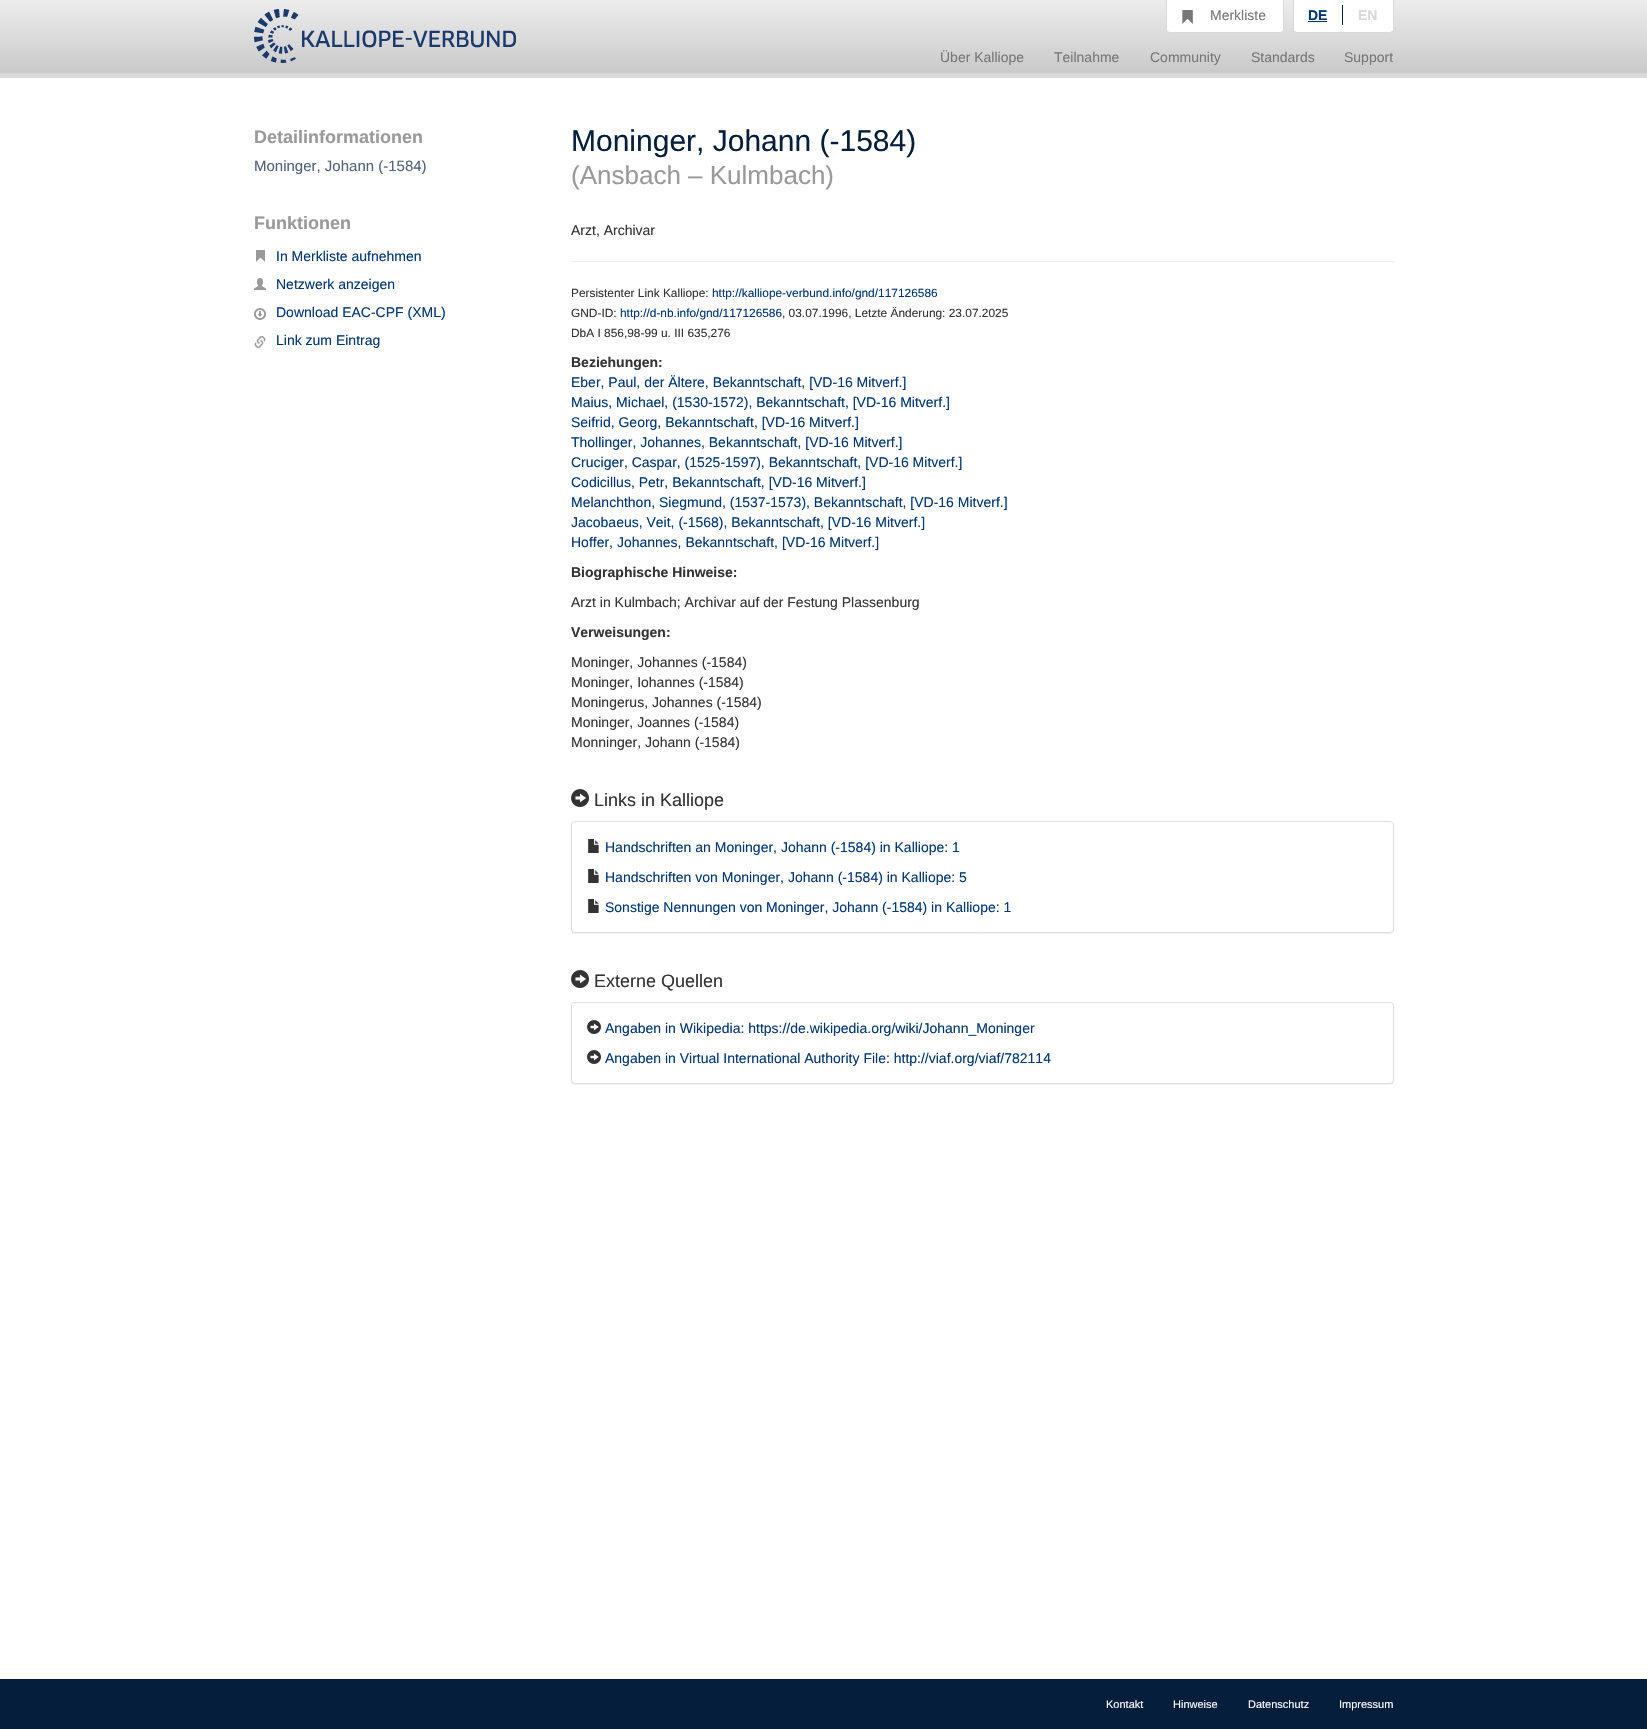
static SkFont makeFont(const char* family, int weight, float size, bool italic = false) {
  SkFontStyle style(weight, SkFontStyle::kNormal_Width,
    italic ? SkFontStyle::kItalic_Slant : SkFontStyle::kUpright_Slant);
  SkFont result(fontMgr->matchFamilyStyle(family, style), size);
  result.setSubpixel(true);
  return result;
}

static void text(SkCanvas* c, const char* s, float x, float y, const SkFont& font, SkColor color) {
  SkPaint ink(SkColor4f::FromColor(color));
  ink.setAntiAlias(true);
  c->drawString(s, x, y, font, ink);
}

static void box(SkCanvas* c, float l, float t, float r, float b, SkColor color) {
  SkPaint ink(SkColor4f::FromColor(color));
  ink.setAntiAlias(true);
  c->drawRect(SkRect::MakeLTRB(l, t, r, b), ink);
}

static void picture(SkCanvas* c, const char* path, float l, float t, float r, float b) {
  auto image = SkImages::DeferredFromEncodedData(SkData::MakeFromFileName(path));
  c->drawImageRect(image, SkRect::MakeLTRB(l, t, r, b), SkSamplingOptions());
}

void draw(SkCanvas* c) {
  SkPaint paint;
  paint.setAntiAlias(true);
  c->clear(0xffffffff);
  {
    const SkColor colors[] = {0xffededed, 0xffc9c9c9};
    const float stops[] = {0, 1};
    const SkPoint ends[] = {{824, 0}, {824, 73}};
    paint.setShader(SkGradientShader::MakeLinear(ends, colors, stops, 2, SkTileMode::kClamp));
    paint.setAlpha(255);
  }
  c->drawRect(SkRect::MakeLTRB(0, 0, 1647, 73), paint);
  box(c, 0, 73, 1647, 78, 0xffd9d9d9);
  picture(c, "img_01.png", 254, 9, 516, 63);
  paint.setShader(nullptr);
  paint.setColor(0xffffffff);
  c->drawPath(SkPathBuilder().moveTo(1166, -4).lineTo(1284, -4).lineTo(1284, 29).cubicTo(1284, 31, 1282, 33, 1280, 33).lineTo(1170, 33).cubicTo(1168, 33, 1166, 31, 1166, 29).close().detach(), paint);
  paint.setColor(0xffd9d9d9);
  c->drawPath(SkPathBuilder(SkPathFillType::kEvenOdd).moveTo(1166, -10).lineTo(1284, -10).lineTo(1284, 29).cubicTo(1284, 31, 1282, 33, 1280, 33).lineTo(1170, 33).cubicTo(1168, 33, 1166, 31, 1166, 29).close().moveTo(1167, -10).lineTo(1283, -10).lineTo(1283, 29).cubicTo(1283, 31, 1282, 32, 1280, 32).lineTo(1170, 32).cubicTo(1168, 32, 1167, 31, 1167, 29).close().detach(), paint);
  picture(c, "img_02.png", 1182, 10, 1193, 24);
  SkFont face1 = makeFont("Liberation Sans", 400, 14);
  text(c, "Merkliste", 1210, 20, face1, 0xff777777);
  paint.setColor(0xffffffff);
  c->drawPath(SkPathBuilder().moveTo(1293, -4).lineTo(1394, -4).lineTo(1394, 29).cubicTo(1394, 31, 1392, 33, 1390, 33).lineTo(1297, 33).cubicTo(1295, 33, 1293, 31, 1293, 29).close().detach(), paint);
  paint.setColor(0x26000000);
  c->drawPath(SkPathBuilder().moveTo(1394, -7).lineTo(1393, -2).lineTo(1393, 29).cubicTo(1393, 30, 1393, 31, 1392, 31).lineTo(1393, 32).cubicTo(1393.5f, 31, 1394, 30, 1394, 29).close().detach(), paint);
  c->drawPath(SkPathBuilder().moveTo(1297, 33).lineTo(1390, 33).lineTo(1393, 32).lineTo(1392, 31).lineTo(1390, 32).lineTo(1297, 32).lineTo(1295, 31).lineTo(1294, 32).close().detach(), paint);
  c->drawPath(SkPathBuilder().moveTo(1294, -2).lineTo(1293, -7).lineTo(1293, 29).cubicTo(1293, 30, 1293.5f, 31, 1294, 32).lineTo(1295, 31).cubicTo(1294, 31, 1294, 30, 1294, 29).close().detach(), paint);
  box(c, 1342, 5, 1343, 25, 0xff051e3c);
  SkFont face2 = makeFont("Liberation Sans", 700, 14);
  text(c, "DE", 1308, 20, face2, 0xff003574);
  box(c, 1308, 21, 1327, 22, 0xff003574);
  text(c, "EN", 1358, 20, face2, 0xffd9d9d9);
  text(c, "Über Kalliope", 940, 62, face1, 0xff777777);
  text(c, "Teilnahme", 1054, 62, face1, 0xff777777);
  text(c, "Community", 1150, 62, face1, 0xff777777);
  text(c, "Standards", 1251, 62, face1, 0xff777777);
  text(c, "Support", 1344, 62, face1, 0xff777777);
  SkFont face3 = makeFont("Liberation Sans", 700, 18);
  text(c, "Detailinformationen", 254, 143, face3, 0xff999999);
  SkFont face4 = makeFont("Liberation Sans", 400, 15);
  text(c, "Moninger, Johann (-1584)", 254, 171, face4, 0xff506277);
  text(c, "Funktionen", 254, 229, face3, 0xff999999);
  picture(c, "img_03.png", 256, 250, 265, 262);
  text(c, "In Merkliste aufnehmen", 276, 261, face1, 0xff003574);
  picture(c, "img_04.png", 254, 278, 266, 290);
  text(c, "Netzwerk anzeigen", 276, 289, face1, 0xff003574);
  picture(c, "img_05.png", 254, 308, 266, 320);
  text(c, "Download EAC-CPF (XML)", 276, 317, face1, 0xff003574);
  picture(c, "img_06.png", 254, 335, 266, 349);
  text(c, "Link zum Eintrag", 276, 345, face1, 0xff003574);
  SkFont face5 = makeFont("Liberation Sans", 400, 30);
  text(c, "Moninger, Johann (-1584)", 571, 151, face5, 0xff051e3c);
  SkFont face6 = makeFont("Liberation Sans", 400, 26);
  text(c, "(Ansbach – Kulmbach)", 571, 184, face6, 0xff999999);
  text(c, "Arzt, Archivar", 571, 235, face1, 0xff333333);
  box(c, 571, 261, 1394, 262, 0xffeeeeee);
  SkFont face7 = makeFont("Liberation Sans", 400, 11.9f);
  text(c, "Persistenter Link Kalliope:", 571, 297, face7, 0xff333333);
  text(c, "http://kalliope-verbund.info/gnd/117126586", 712, 297, face7, 0xff003574);
  text(c, "GND-ID:", 571, 317, face7, 0xff333333);
  text(c, "http://d-nb.info/gnd/117126586", 620, 317, face7, 0xff003574);
  text(c, ", 03.07.1996, Letzte Änderung: 23.07.2025", 782, 317, face7, 0xff333333);
  text(c, "DbA I 856,98-99 u. III 635,276", 571, 337, face7, 0xff333333);
  text(c, "Beziehungen:", 571, 367, face2, 0xff333333);
  text(c, "Eber, Paul, der Ältere, Bekanntschaft, [VD-16 Mitverf.]", 571, 387, face1, 0xff003574);
  text(c, "Maius, Michael, (1530-1572), Bekanntschaft, [VD-16 Mitverf.]", 571, 407, face1, 0xff003574);
  text(c, "Seifrid, Georg, Bekanntschaft, [VD-16 Mitverf.]", 571, 427, face1, 0xff003574);
  text(c, "Thollinger, Johannes, Bekanntschaft, [VD-16 Mitverf.]", 571, 447, face1, 0xff003574);
  text(c, "Cruciger, Caspar, (1525-1597), Bekanntschaft, [VD-16 Mitverf.]", 571, 467, face1, 0xff003574);
  text(c, "Codicillus, Petr, Bekanntschaft, [VD-16 Mitverf.]", 571, 487, face1, 0xff003574);
  text(c, "Melanchthon, Siegmund, (1537-1573), Bekanntschaft, [VD-16 Mitverf.]", 571, 507, face1, 0xff003574);
  text(c, "Jacobaeus, Veit, (-1568), Bekanntschaft, [VD-16 Mitverf.]", 571, 527, face1, 0xff003574);
  text(c, "Hoffer, Johannes, Bekanntschaft, [VD-16 Mitverf.]", 571, 547, face1, 0xff003574);
  text(c, "Biographische Hinweise:", 571, 577, face2, 0xff333333);
  text(c, "Arzt in Kulmbach; Archivar auf der Festung Plassenburg", 571, 607, face1, 0xff333333);
  text(c, "Verweisungen:", 571, 637, face2, 0xff333333);
  text(c, "Moninger, Johannes (-1584)", 571, 667, face1, 0xff333333);
  text(c, "Moninger, Iohannes (-1584)", 571, 687, face1, 0xff333333);
  text(c, "Moningerus, Johannes (-1584)", 571, 707, face1, 0xff333333);
  text(c, "Moninger, Joannes (-1584)", 571, 727, face1, 0xff333333);
  text(c, "Monninger, Johann (-1584)", 571, 747, face1, 0xff333333);
  picture(c, "img_07.png", 571, 789, 589, 807);
  SkFont face8 = makeFont("Liberation Sans", 400, 18);
  text(c, "Links in Kalliope", 594, 806, face8, 0xff333333);
  paint.setColor(0x0d000000);
  paint.setMaskFilter(SkMaskFilter::MakeBlur(kNormal_SkBlurStyle, 0.5f));
  c->drawRoundRect(SkRect::MakeLTRB(571, 822, 1394, 934), 4, 4, paint);
  paint.setMaskFilter(nullptr);
  paint.setColor(0xffffffff);
  c->drawRoundRect(SkRect::MakeLTRB(571.5f, 821.5f, 1393.5f, 932.5f), 3.5f, 3.5f, paint);
  paint.setStyle(SkPaint::kStroke_Style);
  paint.setStrokeWidth(1);
  paint.setColor(0xffdddddd);
  c->drawRoundRect(SkRect::MakeLTRB(571.5f, 821.5f, 1393.5f, 932.5f), 3.5f, 3.5f, paint);
  picture(c, "img_08.png", 588, 839, 599, 853);
  text(c, "Handschriften an Moninger, Johann (-1584) in Kalliope: 1", 605, 852, face1, 0xff003574);
  picture(c, "img_08.png", 588, 869, 599, 883);
  text(c, "Handschriften von Moninger, Johann (-1584) in Kalliope: 5", 605, 882, face1, 0xff003574);
  picture(c, "img_08.png", 588, 899, 599, 913);
  text(c, "Sonstige Nennungen von Moninger, Johann (-1584) in Kalliope: 1", 605, 912, face1, 0xff003574);
  picture(c, "img_07.png", 571, 970, 589, 988);
  text(c, "Externe Quellen", 594, 987, face8, 0xff333333);
  paint.setStyle(SkPaint::kFill_Style);
  paint.setColor(0x0d000000);
  paint.setMaskFilter(SkMaskFilter::MakeBlur(kNormal_SkBlurStyle, 0.5f));
  c->drawRoundRect(SkRect::MakeLTRB(571, 1003, 1394, 1085), 4, 4, paint);
  paint.setMaskFilter(nullptr);
  paint.setColor(0xffffffff);
  c->drawRoundRect(SkRect::MakeLTRB(571.5f, 1002.5f, 1393.5f, 1083.5f), 3.5f, 3.5f, paint);
  paint.setStyle(SkPaint::kStroke_Style);
  paint.setColor(0xffdddddd);
  c->drawRoundRect(SkRect::MakeLTRB(571.5f, 1002.5f, 1393.5f, 1083.5f), 3.5f, 3.5f, paint);
  picture(c, "img_09.png", 587, 1020, 601, 1034);
  text(c, "Angaben in Wikipedia: https://de.wikipedia.org/wiki/Johann_Moninger", 605, 1033, face1, 0xff003574);
  picture(c, "img_09.png", 587, 1050, 601, 1064);
  text(c, "Angaben in Virtual International Authority File: http://viaf.org/viaf/782114", 605, 1063, face1, 0xff003574);
  box(c, 0, 1679, 1647, 1729, 0xff051e3c);
  SkFont face9 = makeFont("Liberation Sans", 400, 11);
  text(c, "Kontakt", 1106, 1708, face9, 0xffffffff);
  text(c, "Hinweise", 1173, 1708, face9, 0xffffffff);
  text(c, "Datenschutz", 1248, 1708, face9, 0xffffffff);
  text(c, "Impressum", 1339, 1708, face9, 0xffffffff);
}
